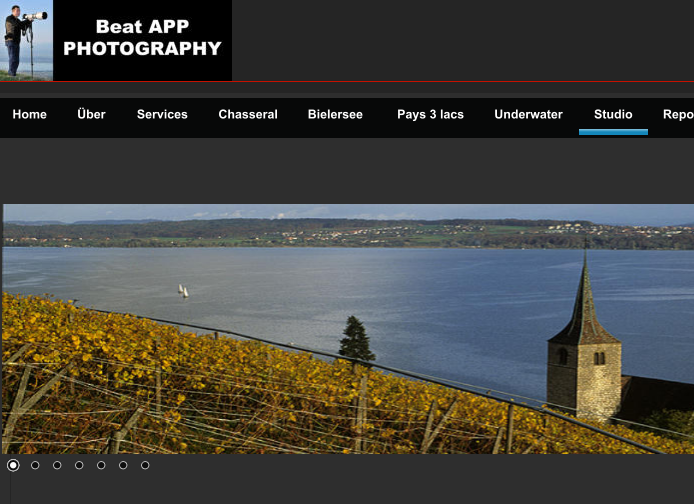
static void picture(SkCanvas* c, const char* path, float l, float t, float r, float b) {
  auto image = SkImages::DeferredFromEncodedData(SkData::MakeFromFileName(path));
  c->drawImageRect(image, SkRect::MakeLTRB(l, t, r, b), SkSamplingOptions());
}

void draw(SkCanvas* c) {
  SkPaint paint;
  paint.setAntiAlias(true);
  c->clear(0xff2e2e2e);
  picture(c, "img_01.png", 0, 0, 694, 93);
  picture(c, "img_02.png", 0, 0, 232, 81);
  paint.setStyle(SkPaint::kStroke_Style);
  paint.setStrokeWidth(1);
  paint.setColor(0xff252525);
  c->drawRect(SkRect::MakeLTRB(10.5f, 399.5f, 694.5f, 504.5f), paint);
  picture(c, "img_03.png", 2, 204, 694, 454);
  picture(c, "img_04.png", 7, 459, 20, 472);
  picture(c, "img_05.png", 31, 461, 40, 470);
  picture(c, "img_05.png", 53, 461, 62, 470);
  picture(c, "img_05.png", 75, 461, 84, 470);
  picture(c, "img_05.png", 97, 461, 106, 470);
  picture(c, "img_05.png", 119, 461, 128, 470);
  picture(c, "img_05.png", 141, 461, 150, 470);
  picture(c, "img_06.png", 0, 98, 62, 138);
  picture(c, "img_07.png", 62, 98, 121, 138);
  picture(c, "img_08.png", 121, 98, 203, 138);
  picture(c, "img_09.png", 203, 98, 293, 138);
  picture(c, "img_10.png", 293, 98, 382, 138);
  picture(c, "img_11.png", 382, 98, 479, 138);
  picture(c, "img_12.png", 479, 98, 579, 138);
  picture(c, "img_13.png", 579, 98, 648, 138);
  picture(c, "img_14.png", 579, 129, 648, 135);
  picture(c, "img_15.png", 648, 98, 694, 138);
}
